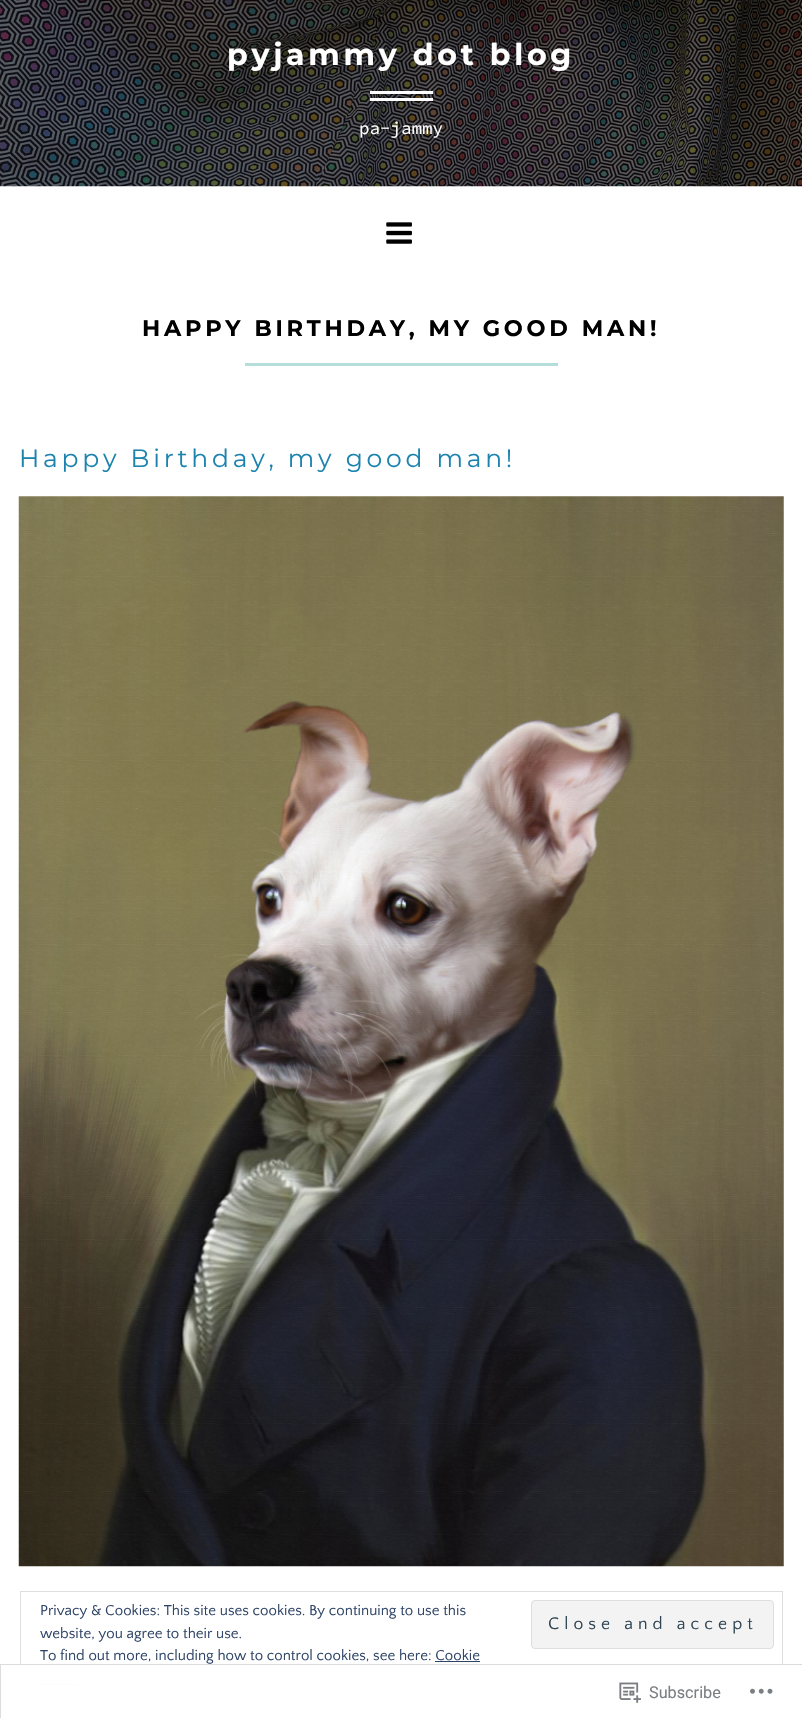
static SkFont makeFont(const char* family, int weight, float size, bool italic = false) {
  SkFontStyle style(weight, SkFontStyle::kNormal_Width,
    italic ? SkFontStyle::kItalic_Slant : SkFontStyle::kUpright_Slant);
  SkFont result(fontMgr->matchFamilyStyle(family, style), size);
  result.setSubpixel(true);
  return result;
}

static void text(SkCanvas* c, const char* s, float x, float y, const SkFont& font, SkColor color) {
  SkPaint ink(SkColor4f::FromColor(color));
  ink.setAntiAlias(true);
  c->drawString(s, x, y, font, ink);
}

static void spacedText(SkCanvas* c, const char* s, float x, float y, const SkFont& font, const SkPaint& ink, float letter, float word) {
  std::vector<SkGlyphID> glyphs(font.countText(s, strlen(s), SkTextEncoding::kUTF8));
  std::vector<float> xs(glyphs.size());
  font.textToGlyphs(s, strlen(s), SkTextEncoding::kUTF8, glyphs);
  font.getXPos(glyphs, xs, x);
  float extra = 0;
  for (size_t i = 0; i < glyphs.size(); i++) {
    xs[i] += extra;
    extra += letter + word * (glyphs[i] == font.unicharToGlyph(' '));
  }
  c->drawTextBlob(SkTextBlob::MakeFromPosHGlyphs(glyphs, xs, y, font), 0, 0, ink);
}

static void box(SkCanvas* c, float l, float t, float r, float b, SkColor color) {
  SkPaint ink(SkColor4f::FromColor(color));
  ink.setAntiAlias(true);
  c->drawRect(SkRect::MakeLTRB(l, t, r, b), ink);
}

static void picture(SkCanvas* c, const char* path, float l, float t, float r, float b) {
  auto image = SkImages::DeferredFromEncodedData(SkData::MakeFromFileName(path));
  c->drawImageRect(image, SkRect::MakeLTRB(l, t, r, b), SkSamplingOptions());
}

void draw(SkCanvas* c) {
  SkPaint paint;
  paint.setAntiAlias(true);
  c->clear(0xffffffff);
  picture(c, "img_01.png", 0, 0, 802, 187);
  SkFont face1 = makeFont("Montserrat", 700, 30);
  paint.setColor(0xffffffff);
  spacedText(c, "pyjammy dot blog", 227, 65, face1, paint, 3.75f, 0);
  box(c, 370, 91, 433, 94, 0xffffffff);
  box(c, 370, 98, 433, 101, 0xffffffff);
  SkFont face2 = makeFont("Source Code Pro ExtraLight", 400, 17.5f);
  text(c, "pa-jammy", 359, 134, face2, 0xffffffff);
  picture(c, "img_02.png", 386, 222, 412, 244);
  SkFont face3 = makeFont("Montserrat", 700, 22.5f);
  paint.setColor(0xff000000);
  spacedText(c, "HAPPY BIRTHDAY, MY GOOD MAN!", 142, 336, face3, paint, 3.75f, 0);
  box(c, 245, 363, 558, 366, 0xffb5ddda);
  SkFont face4 = makeFont("Montserrat", 400, 25);
  paint.setColor(0xff1c83af);
  spacedText(c, "Happy Birthday, my good man!", 19, 467, face4, paint, 3.75f, 0);
  picture(c, "img_03.png", 18, 496, 784, 1567);
  paint.setStyle(SkPaint::kStroke_Style);
  paint.setStrokeWidth(1);
  paint.setColor(0xffdedede);
  c->drawRect(SkRect::MakeLTRB(20.5f, 1591.5f, 782.5f, 1698.5f), paint);
  SkFont face5 = makeFont("Quattrocento Sans", 400, 15);
  text(c, "Privacy & Cookies: This site uses cookies. By continuing to use this", 40, 1615, face5, 0xff2e4467);
  text(c, "website, you agree to their use.", 40, 1638, face5, 0xff2e4467);
  paint.setStyle(SkPaint::kFill_Style);
  paint.setColor(0xfff3f3f3);
  c->drawRoundRect(SkRect::MakeLTRB(531.5f, 1600.5f, 773.5f, 1648.5f), 3.5f, 3.5f, paint);
  paint.setStyle(SkPaint::kStroke_Style);
  paint.setColor(0xffdedede);
  c->drawRoundRect(SkRect::MakeLTRB(531.5f, 1600.5f, 773.5f, 1648.5f), 3.5f, 3.5f, paint);
  SkFont face6 = makeFont("Quattrocento Sans", 400, 17.5f);
  paint.setStyle(SkPaint::kFill_Style);
  paint.setColor(0xff2e4453);
  spacedText(c, "Close and accept", 548, 1629, face6, paint, 5, 0);
  text(c, "To find out more, including how to control cookies, see here: Cookie", 40, 1660, face5, 0xff2e4467);
  box(c, 435, 1661, 480, 1662, 0xff2e4467);
  box(c, 40, 1684, 79, 1685, 0xff2e4467);
  box(c, 20, 1665, 783, 1699, 0xfaffffff);
  paint.setStyle(SkPaint::kStroke_Style);
  paint.setColor(0xffdddddf);
  c->drawRect(SkRect::MakeLTRB(0.5f, 1664.5f, 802.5f, 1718.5f), paint);
  picture(c, "img_04.png", 619, 1682, 641, 1703);
  SkFont face7 = makeFont("Roboto", 400, 16.25f);
  text(c, "Subscribe", 649, 1698, face7, 0xff7b7f84);
  picture(c, "img_05.png", 750, 1688, 773, 1694);
}
